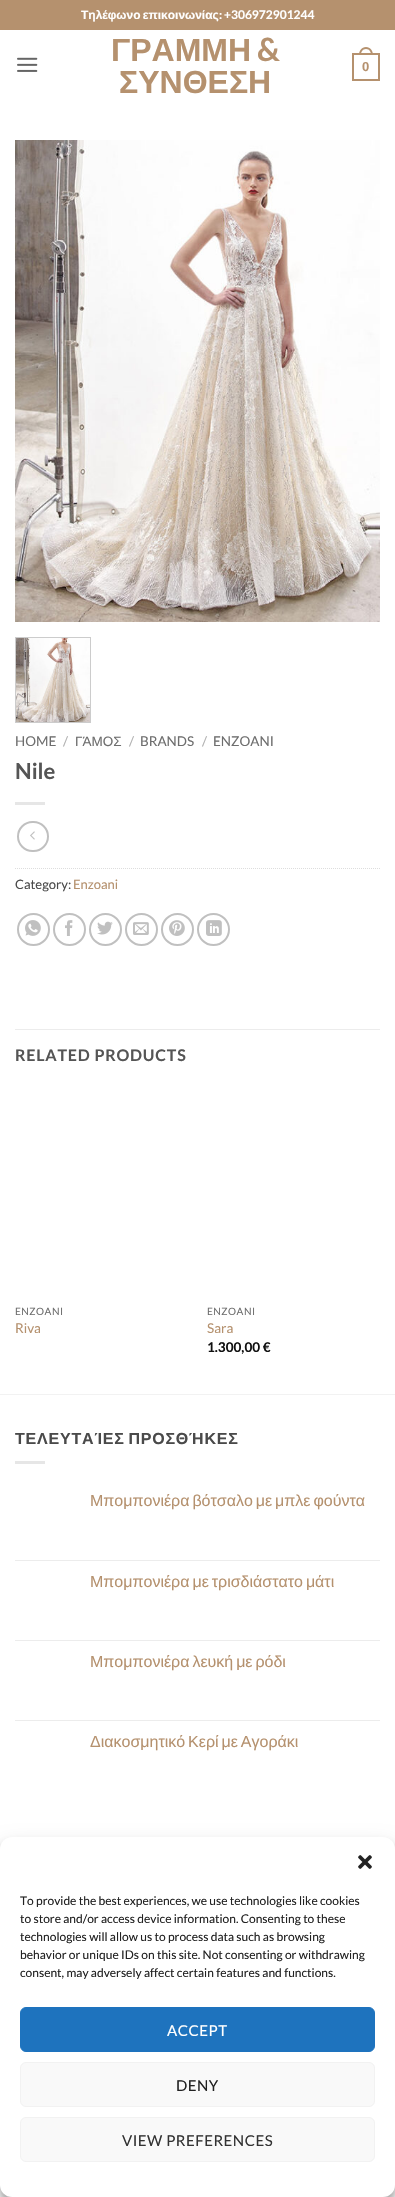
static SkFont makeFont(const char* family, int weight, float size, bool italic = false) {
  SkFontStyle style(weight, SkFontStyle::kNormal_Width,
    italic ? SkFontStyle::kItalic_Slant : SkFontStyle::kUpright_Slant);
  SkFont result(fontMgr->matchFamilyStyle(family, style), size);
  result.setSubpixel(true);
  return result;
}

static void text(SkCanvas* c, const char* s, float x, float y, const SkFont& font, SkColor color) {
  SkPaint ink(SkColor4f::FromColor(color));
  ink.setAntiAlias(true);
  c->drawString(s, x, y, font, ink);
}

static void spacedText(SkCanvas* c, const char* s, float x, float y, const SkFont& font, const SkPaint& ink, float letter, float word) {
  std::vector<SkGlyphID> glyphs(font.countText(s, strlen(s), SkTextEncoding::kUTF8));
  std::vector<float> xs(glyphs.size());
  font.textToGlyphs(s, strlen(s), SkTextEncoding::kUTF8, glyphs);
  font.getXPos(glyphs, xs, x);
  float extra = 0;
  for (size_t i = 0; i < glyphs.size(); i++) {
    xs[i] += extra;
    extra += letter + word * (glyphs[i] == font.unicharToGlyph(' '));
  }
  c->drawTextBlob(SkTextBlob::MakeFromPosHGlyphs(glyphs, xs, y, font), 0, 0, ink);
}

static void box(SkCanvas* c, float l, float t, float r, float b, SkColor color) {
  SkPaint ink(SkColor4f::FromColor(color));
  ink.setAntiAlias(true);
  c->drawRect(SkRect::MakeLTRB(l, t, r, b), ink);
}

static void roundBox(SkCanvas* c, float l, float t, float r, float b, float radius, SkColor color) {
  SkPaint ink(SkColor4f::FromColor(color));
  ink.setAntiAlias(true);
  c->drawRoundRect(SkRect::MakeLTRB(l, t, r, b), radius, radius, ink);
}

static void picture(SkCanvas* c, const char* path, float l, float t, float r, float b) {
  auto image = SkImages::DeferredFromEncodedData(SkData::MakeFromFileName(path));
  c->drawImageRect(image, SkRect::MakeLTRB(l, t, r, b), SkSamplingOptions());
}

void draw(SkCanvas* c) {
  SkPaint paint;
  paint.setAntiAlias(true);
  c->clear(0xffffffff);
  box(c, 0, 0, 395, 30, 0xffb5916e);
  SkFont face1 = makeFont("Liberation Sans", 700, 12);
  paint.setColor(0xffffffff);
  spacedText(c, "Τηλέφωνο επικοινωνίας", 81, 19, face1, paint, 0, -1);
  SkFont face2 = makeFont("Lato", 700, 12);
  text(c, ":", 219, 19, face2, 0xffffffff);
  text(c, "+306972901244", 224, 19, face2, 0xffffffff);
  picture(c, "img_01.png", 17, 57, 38, 72);
  SkFont face3 = makeFont("Liberation Sans", 700, 32);
  text(c, "ΓΡΑΜΜΗ", 111, 61, face3, 0xffb5916e);
  SkFont face4 = makeFont("Lato", 700, 32);
  text(c, "&", 257, 61, face4, 0xffb5916e);
  text(c, "ΣΥΝΘΕΣΗ", 119, 93, face3, 0xffb5916e);
  paint.setStyle(SkPaint::kStroke_Style);
  paint.setStrokeWidth(2);
  paint.setColor(0xffb5916e);
  c->drawRect(SkRect::MakeLTRB(353, 54, 379, 80), paint);
  paint.setStyle(SkPaint::kFill_Style);
  c->drawPath(SkPathBuilder(SkPathFillType::kEvenOdd).moveTo(366, 47).cubicTo(370.5f, 47, 373, 51, 373, 55).lineTo(359, 55).cubicTo(359, 51, 361.5f, 47, 366, 47).close().moveTo(366, 49).cubicTo(369.5f, 49, 371, 52, 371, 55).lineTo(361, 55).cubicTo(361, 52, 362.5f, 49, 366, 49).close().detach(), paint);
  SkFont face5 = makeFont("Liberation Sans", 700, 13);
  text(c, "0", 362, 71, face5, 0xffb5916e);
  picture(c, "img_02.png", 15, 140, 380, 622);
  paint.setStyle(SkPaint::kStroke_Style);
  paint.setStrokeWidth(1);
  paint.setColor(0xffcccccc);
  c->drawRect(SkRect::MakeLTRB(15.5f, 637.5f, 90.5f, 722.5f), paint);
  picture(c, "img_03.png", 16, 638, 90, 722);
  SkFont face6 = makeFont("Lato", 400, 13.5f);
  text(c, "HOME", 15, 746, face6, 0xff6e6e6e);
  text(c, "/", 63, 746, face6, 0xffb2b2b2);
  SkFont face7 = makeFont("Liberation Sans", 400, 13.5f);
  text(c, "ΓΆΜΟΣ", 75, 746, face7, 0xff6e6e6e);
  text(c, "/", 129, 746, face6, 0xffb2b2b2);
  text(c, "BRANDS", 140, 746, face6, 0xff6e6e6e);
  text(c, "/", 202, 746, face6, 0xffb2b2b2);
  text(c, "ENZOANI", 213, 746, face6, 0xff6e6e6e);
  SkFont face8 = makeFont("Lato", 700, 22);
  text(c, "Nile", 15, 779, face8, 0xff555555);
  box(c, 15, 802, 45, 805, 0xffe6e6e6);
  paint.setStrokeWidth(2);
  paint.setColor(0xffc0c0c0);
  c->drawRoundRect(SkRect::MakeLTRB(18, 822, 48, 851), 14.5f, 14.5f, paint);
  picture(c, "img_04.png", 30, 831, 35, 840);
  paint.setStrokeWidth(1);
  paint.setColor(0xffdddddd);
  paint.setPathEffect(SkDashPathEffect::Make({{1, 1}}, 0));
  c->drawPath(SkPathBuilder().moveTo(15, 868.5f).lineTo(380, 868.5f).detach(), paint);
  paint.setPathEffect(nullptr);
  SkFont face9 = makeFont("Lato", 400, 13);
  text(c, "Category:", 15, 889, face9, 0xff4a4a4a);
  text(c, "Enzoani", 73, 889, face9, 0xffb5916e);
  paint.setStrokeWidth(2);
  paint.setColor(0xffc0c0c0);
  c->drawCircle(33.5f, 929.5f, 15.5f, paint);
  picture(c, "img_05.png", 25, 920, 41, 936);
  c->drawCircle(69.5f, 929.5f, 15.5f, paint);
  picture(c, "img_06.png", 65, 920, 73, 936);
  c->drawCircle(105.5f, 929.5f, 15.5f, paint);
  picture(c, "img_07.png", 97, 921, 113, 935);
  c->drawCircle(141.5f, 929.5f, 15.5f, paint);
  picture(c, "img_08.png", 133, 922, 149, 935);
  c->drawCircle(177.5f, 929.5f, 15.5f, paint);
  picture(c, "img_09.png", 169, 920, 185, 936);
  c->drawCircle(213.5f, 929.5f, 15.5f, paint);
  picture(c, "img_10.png", 206, 920, 222, 936);
  box(c, 15, 1029, 380, 1030, 0xffececec);
  SkFont face10 = makeFont("Lato", 700, 16);
  paint.setStyle(SkPaint::kFill_Style);
  paint.setColor(0xff555555);
  spacedText(c, "RELATED PRODUCTS", 15, 1061, face10, paint, 0.8f, 0);
  SkFont face11 = makeFont("Lato", 400, 10);
  paint.setColor(0xff6e6e6e);
  spacedText(c, "ENZOANI", 15, 1315, face11, paint, 0.5f, 0);
  text(c, "Riva", 15, 1333, face6, 0xffb5916e);
  spacedText(c, "ENZOANI", 207, 1315, face11, paint, 0.5f, 0);
  text(c, "Sara", 207, 1333, face6, 0xffb5916e);
  SkFont face12 = makeFont("Lato", 700, 13.5f);
  text(c, "1.300,00 €", 207, 1352, face12, 0xff111111);
  box(c, 0, 1394, 395, 1395, 0xfff2f2f2);
  SkFont face13 = makeFont("Liberation Sans", 700, 16);
  paint.setColor(0xff4a4a4a);
  spacedText(c, "ΤΕΛΕΥΤΑΊΕΣ ΠΡΟΣΘΉΚΕΣ", 15, 1444, face13, paint, 0.8f, -1.5f);
  box(c, 15, 1461, 45, 1464, 0xffe6e6e6);
  SkFont face14 = makeFont("Liberation Sans", 400, 16);
  paint.setColor(0xffb5916e);
  spacedText(c, "Μπομπονιέρα βότσαλο με μπλε φούντα", 90, 1506, face14, paint, 0, -1.5f);
  box(c, 15, 1560, 380, 1561, 0xffececec);
  spacedText(c, "Μπομπονιέρα με τρισδιάστατο μάτι", 90, 1587, face14, paint, 0, -1.5f);
  box(c, 15, 1640, 380, 1641, 0xffececec);
  spacedText(c, "Μπομπονιέρα λευκή με ρόδι", 90, 1667, face14, paint, 0, -1.5f);
  box(c, 15, 1720, 380, 1721, 0xffececec);
  spacedText(c, "Διακοσμητικό Κερί με Αγοράκι", 90, 1747, face14, paint, 0, -1.5f);
  paint.setColor(0x3b000000);
  paint.setMaskFilter(SkMaskFilter::MakeBlur(kNormal_SkBlurStyle, 3));
  c->drawRoundRect(SkRect::MakeLTRB(0, 1843, 395, 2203), 12, 12, paint);
  paint.setMaskFilter(nullptr);
  paint.setColor(0x30000000);
  paint.setMaskFilter(SkMaskFilter::MakeBlur(kNormal_SkBlurStyle, 10));
  c->drawRoundRect(SkRect::MakeLTRB(0, 1847, 395, 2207), 12, 12, paint);
  paint.setMaskFilter(nullptr);
  roundBox(c, 0, 1837, 395, 2197, 12, 0xffffffff);
  picture(c, "img_11.png", 358, 1855, 372, 1869);
  SkFont face15 = makeFont("Lato", 400, 12);
  text(c, "To provide the best experiences, we use technologies like cookies", 20, 1905, face15, 0xff222222);
  text(c, "to store and/or access device information. Consenting to these", 20, 1923, face15, 0xff222222);
  text(c, "technologies will allow us to process data such as browsing", 20, 1941, face15, 0xff222222);
  text(c, "behavior or unique IDs on this site. Not consenting or withdrawing", 20, 1959, face15, 0xff222222);
  text(c, "consent, may adversely affect certain features and functions.", 20, 1977, face15, 0xff222222);
  paint.setColor(0xff1e73be);
  c->drawRoundRect(SkRect::MakeLTRB(20.5f, 2007.5f, 374.5f, 2051.5f), 5.5f, 5.5f, paint);
  paint.setStyle(SkPaint::kStroke_Style);
  paint.setStrokeWidth(1);
  c->drawRoundRect(SkRect::MakeLTRB(20.5f, 2007.5f, 374.5f, 2051.5f), 5.5f, 5.5f, paint);
  SkFont face16 = makeFont("Lato", 400, 15);
  paint.setStyle(SkPaint::kFill_Style);
  paint.setColor(0xffffffff);
  spacedText(c, "ACCEPT", 167, 2036, face16, paint, 0.5f, 0);
  paint.setColor(0xfff9f9f9);
  c->drawRoundRect(SkRect::MakeLTRB(20.5f, 2062.5f, 374.5f, 2106.5f), 5.5f, 5.5f, paint);
  paint.setStyle(SkPaint::kStroke_Style);
  paint.setColor(0xfff2f2f2);
  c->drawRoundRect(SkRect::MakeLTRB(20.5f, 2062.5f, 374.5f, 2106.5f), 5.5f, 5.5f, paint);
  paint.setStyle(SkPaint::kFill_Style);
  paint.setColor(0xff222222);
  spacedText(c, "DENY", 176, 2091, face16, paint, 0.5f, 0);
  paint.setColor(0xfff9f9f9);
  c->drawRoundRect(SkRect::MakeLTRB(20.5f, 2117.5f, 374.5f, 2161.5f), 5.5f, 5.5f, paint);
  paint.setStyle(SkPaint::kStroke_Style);
  paint.setColor(0xfff2f2f2);
  c->drawRoundRect(SkRect::MakeLTRB(20.5f, 2117.5f, 374.5f, 2161.5f), 5.5f, 5.5f, paint);
  paint.setStyle(SkPaint::kFill_Style);
  paint.setColor(0xff333333);
  spacedText(c, "VIEW PREFERENCES", 122, 2146, face16, paint, 0.5f, 0);
}
